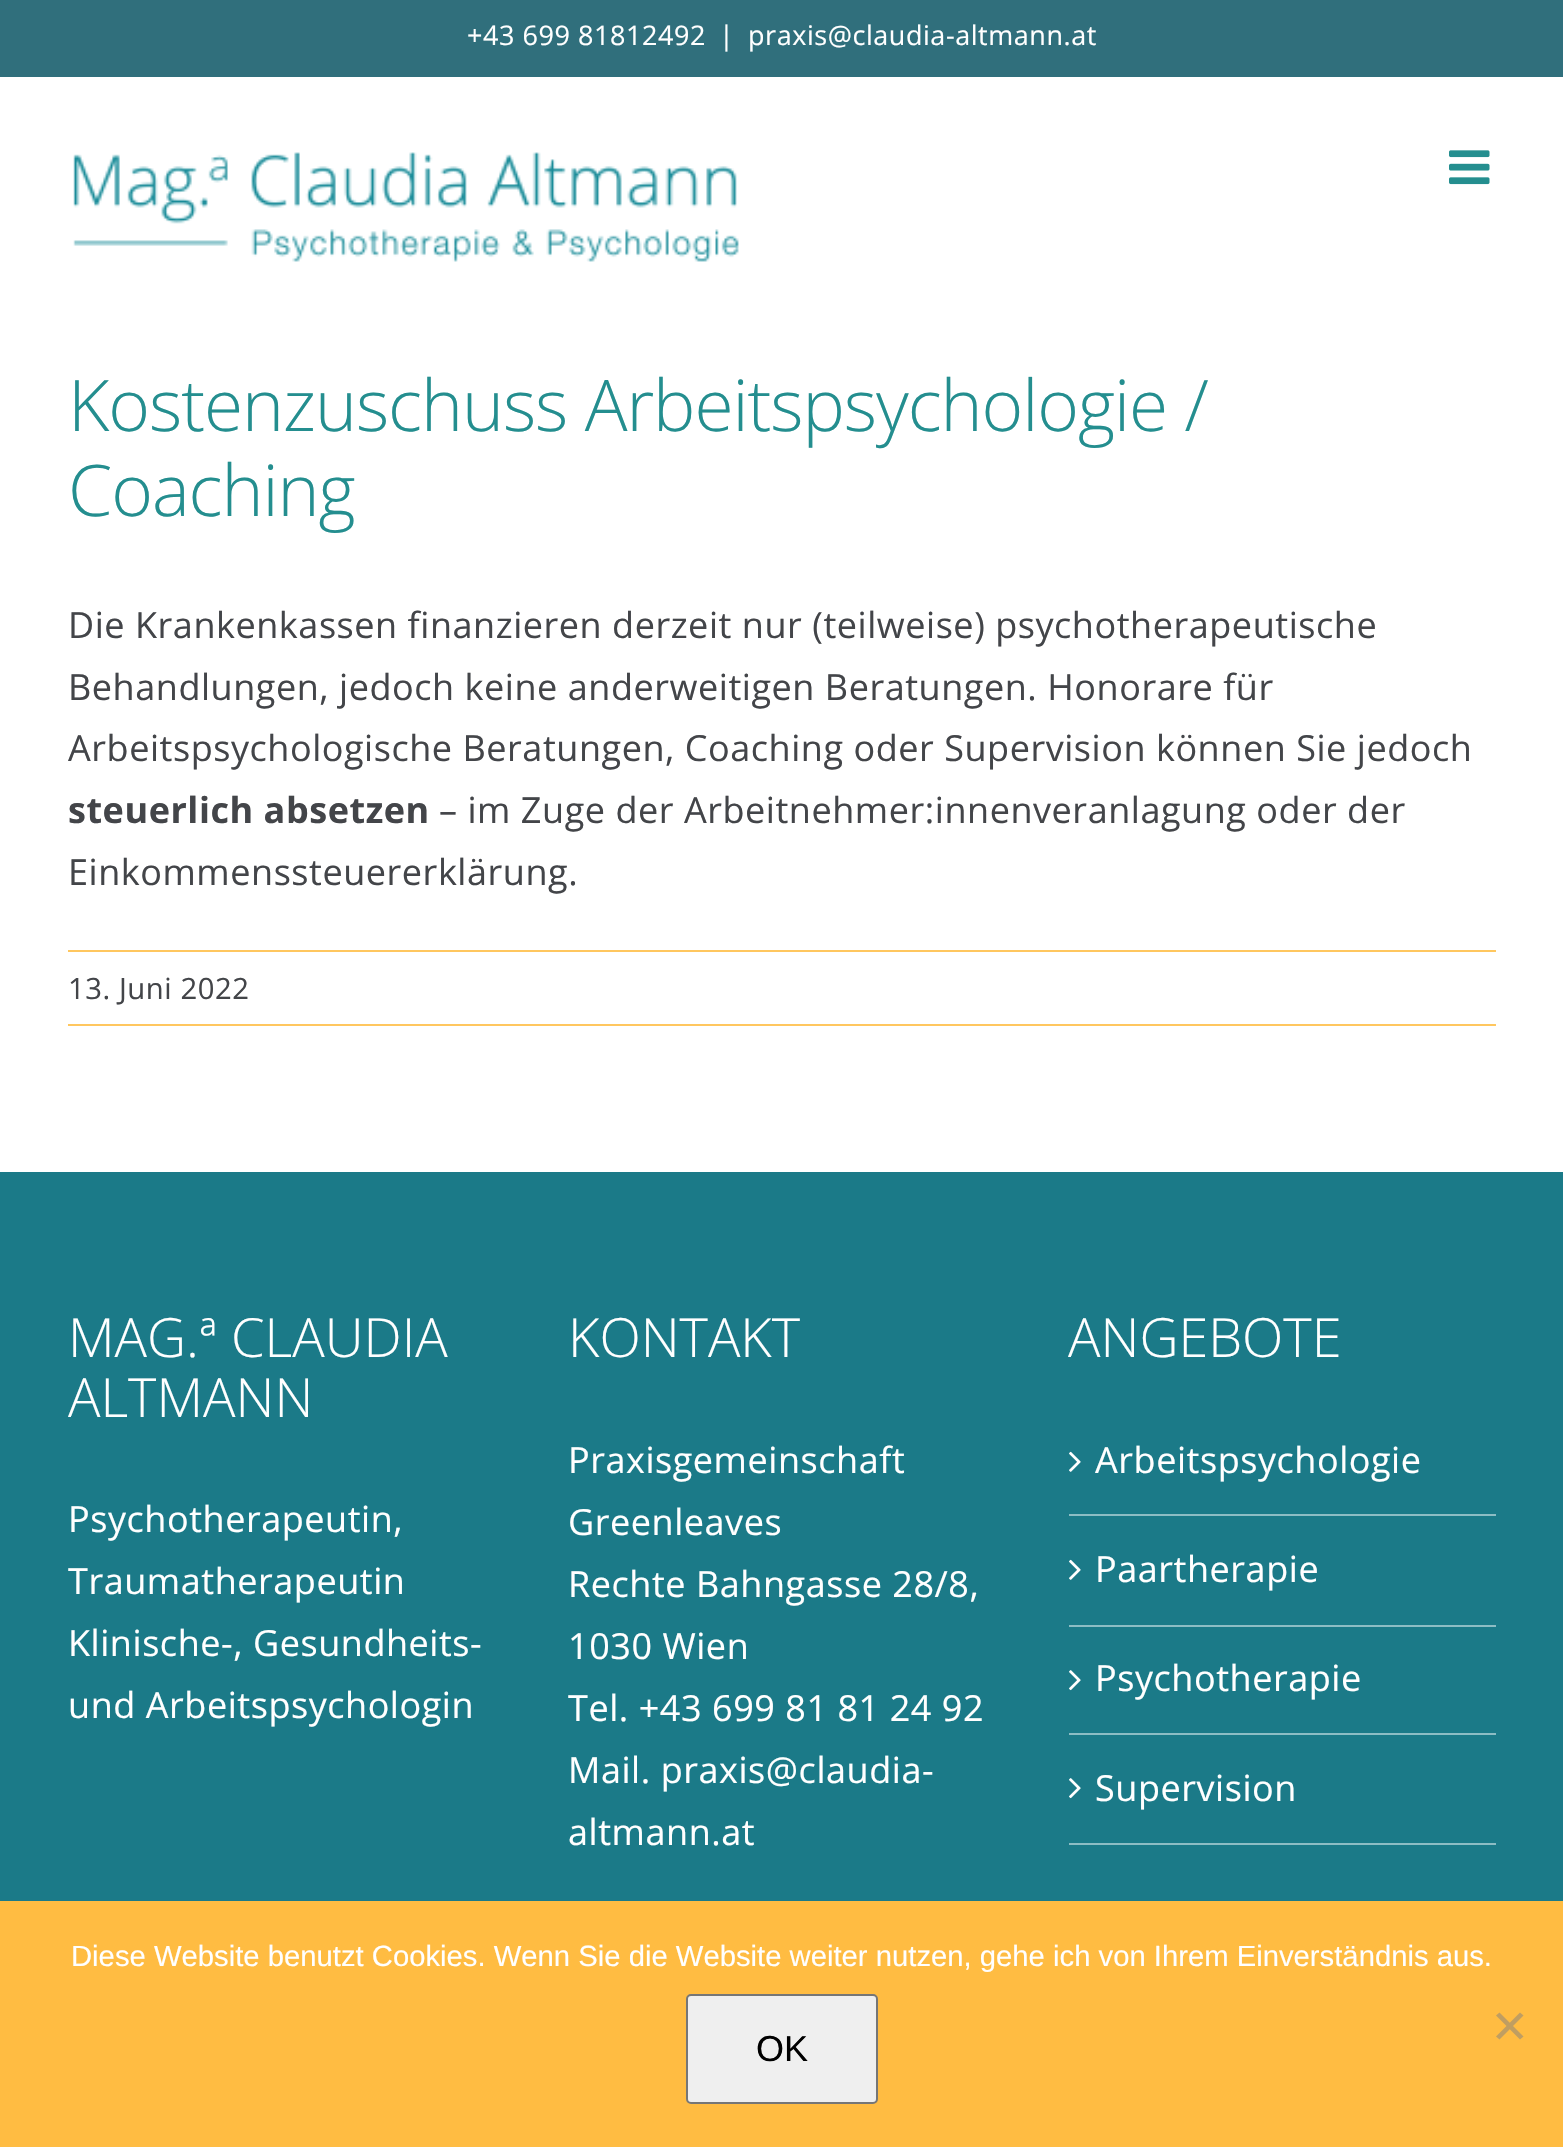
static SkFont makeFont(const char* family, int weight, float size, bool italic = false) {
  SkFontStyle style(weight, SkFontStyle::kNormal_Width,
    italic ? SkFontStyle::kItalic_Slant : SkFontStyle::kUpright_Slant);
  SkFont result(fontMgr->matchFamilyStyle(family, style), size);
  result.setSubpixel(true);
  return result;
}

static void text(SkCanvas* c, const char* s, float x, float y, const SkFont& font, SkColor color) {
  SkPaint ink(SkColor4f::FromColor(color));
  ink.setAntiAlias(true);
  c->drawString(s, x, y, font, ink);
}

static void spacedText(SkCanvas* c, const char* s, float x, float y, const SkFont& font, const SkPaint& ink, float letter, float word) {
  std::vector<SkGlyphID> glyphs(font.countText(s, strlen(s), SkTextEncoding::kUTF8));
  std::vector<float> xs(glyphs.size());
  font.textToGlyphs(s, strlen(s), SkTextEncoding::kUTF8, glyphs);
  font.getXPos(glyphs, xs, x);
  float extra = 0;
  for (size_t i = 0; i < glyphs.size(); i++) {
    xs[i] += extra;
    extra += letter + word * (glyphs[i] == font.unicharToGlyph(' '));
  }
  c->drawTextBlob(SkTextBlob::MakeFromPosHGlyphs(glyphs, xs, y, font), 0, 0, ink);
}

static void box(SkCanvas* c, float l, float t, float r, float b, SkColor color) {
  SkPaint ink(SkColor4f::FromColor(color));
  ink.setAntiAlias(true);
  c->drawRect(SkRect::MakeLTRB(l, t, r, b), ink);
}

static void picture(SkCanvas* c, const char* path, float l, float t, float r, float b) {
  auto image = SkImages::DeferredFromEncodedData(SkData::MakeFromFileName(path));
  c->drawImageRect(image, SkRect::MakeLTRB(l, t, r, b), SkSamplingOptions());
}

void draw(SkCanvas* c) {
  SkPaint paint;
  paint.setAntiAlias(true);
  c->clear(0xffffffff);
  box(c, 0, 0, 1563, 77, 0xff306f7c);
  SkFont face1 = makeFont("Open Sans", 400, 27);
  paint.setColor(0xffffffff);
  spacedText(c, "+43 699 81812492", 467, 45, face1, paint, 0.55f, 0);
  spacedText(c, "|", 719, 45, face1, paint, 0.55f, 0);
  spacedText(c, "praxis@claudia-altmann.at", 748, 45, face1, paint, 0.55f, 0);
  picture(c, "img_01.png", 73, 152, 739, 262);
  picture(c, "img_02.png", 1449, 150, 1490, 185);
  SkFont face2 = makeFont("Open Sans", 300, 71.25f);
  paint.setColor(0xff248e8f);
  spacedText(c, "Kostenzuschuss Arbeitspsychologie /", 68, 431, face2, paint, -1.05f, 0);
  spacedText(c, "Coaching", 68, 516, face2, paint, -1.05f, 0);
  SkFont face3 = makeFont("Open Sans", 400, 36);
  paint.setColor(0xff434549);
  spacedText(c, "Die Krankenkassen finanzieren derzeit nur (teilweise) psychotherapeutische", 68, 638, face3, paint, 0.55f, 0);
  spacedText(c, "Behandlungen, jedoch keine anderweitigen Beratungen. Honorare für", 68, 700, face3, paint, 0.55f, 0);
  spacedText(c, "Arbeitspsychologische Beratungen, Coaching oder Supervision können Sie jedoch", 68, 761, face3, paint, 0.55f, 0);
  SkFont face4 = makeFont("Open Sans", 700, 36);
  spacedText(c, "steuerlich absetzen", 68, 823, face4, paint, 0.55f, 0);
  spacedText(c, "– im Zuge der Arbeitnehmer:innenveranlagung oder der", 439, 823, face3, paint, 0.55f, 0);
  spacedText(c, "Einkommenssteuererklärung.", 68, 885, face3, paint, 0.55f, 0);
  box(c, 68, 950, 1496, 952, 0xffffc75f);
  box(c, 68, 1024, 1496, 1026, 0xffffc75f);
  SkFont face5 = makeFont("Open Sans", 400, 29.25f);
  spacedText(c, "13. Juni 2022", 68, 999, face5, paint, 0.55f, 0);
  box(c, 0, 1172, 1563, 1901, 0xff1b7a88);
  SkFont face6 = makeFont("Open Sans", 300, 54);
  text(c, "MAG.ª CLAUDIA", 68, 1357, face6, 0xffffffff);
  text(c, "ALTMANN", 68, 1417, face6, 0xffffffff);
  paint.setColor(0xffffffff);
  spacedText(c, "Psychotherapeutin,", 68, 1532, face3, paint, 0.55f, 0);
  spacedText(c, "Traumatherapeutin", 68, 1594, face3, paint, 0.55f, 0);
  spacedText(c, "Klinische-, Gesundheits-", 68, 1656, face3, paint, 0.55f, 0);
  spacedText(c, "und Arbeitspsychologin", 68, 1718, face3, paint, 0.55f, 0);
  text(c, "KONTAKT", 568, 1357, face6, 0xffffffff);
  spacedText(c, "Praxisgemeinschaft", 568, 1473, face3, paint, 0.55f, 0);
  spacedText(c, "Greenleaves", 568, 1535, face3, paint, 0.55f, 0);
  spacedText(c, "Rechte Bahngasse 28/8,", 568, 1597, face3, paint, 0.55f, 0);
  spacedText(c, "1030 Wien", 568, 1659, face3, paint, 0.55f, 0);
  spacedText(c, "Tel. +43 699 81 81 24 92", 568, 1721, face3, paint, 0.55f, 0);
  spacedText(c, "Mail. praxis@claudia-", 568, 1783, face3, paint, 0.55f, 0);
  spacedText(c, "altmann.at", 568, 1845, face3, paint, 0.55f, 0);
  text(c, "ANGEBOTE", 1068, 1357, face6, 0xffffffff);
  box(c, 1069, 1514, 1496, 1516, 0xff8dbdc4);
  picture(c, "img_03.png", 1069, 1451, 1081, 1472);
  spacedText(c, "Arbeitspsychologie", 1095, 1473, face3, paint, 0.55f, 0);
  box(c, 1069, 1625, 1496, 1627, 0xff8dbdc4);
  picture(c, "img_03.png", 1069, 1559, 1081, 1580);
  spacedText(c, "Paartherapie", 1095, 1582, face3, paint, 0.55f, 0);
  box(c, 1069, 1733, 1496, 1735, 0xff8dbdc4);
  picture(c, "img_04.png", 1069, 1670, 1081, 1691);
  spacedText(c, "Psychotherapie", 1095, 1691, face3, paint, 0.55f, 0);
  box(c, 1069, 1843, 1496, 1845, 0xff8dbdc4);
  picture(c, "img_04.png", 1069, 1778, 1081, 1799);
  spacedText(c, "Supervision", 1095, 1801, face3, paint, 0.55f, 0);
  box(c, 0, 1901, 1563, 2147, 0xffffbc42);
  SkFont face7 = makeFont("Liberation Sans", 400, 29.25f);
  text(c, "Diese Website benutzt Cookies. Wenn Sie die Website weiter nutzen, gehe ich von Ihrem Einverständnis aus.", 71, 1966, face7, 0xffffffff);
  paint.setColor(0xffc09e61);
  c->drawPath(SkPathBuilder().moveTo(1520, 2012.5f).lineTo(1523.5f, 2015.5f).lineTo(1499.5f, 2039.5f).lineTo(1496, 2036.5f).close().detach(), paint);
  c->drawPath(SkPathBuilder().moveTo(1496, 2015.5f).lineTo(1499.5f, 2012.5f).lineTo(1523.5f, 2036.5f).lineTo(1520, 2039.5f).close().detach(), paint);
  paint.setColor(0xffefefef);
  c->drawRoundRect(SkRect::MakeLTRB(687, 1995, 877, 2103), 4, 4, paint);
  paint.setStyle(SkPaint::kStroke_Style);
  paint.setStrokeWidth(2);
  paint.setColor(0xff767676);
  c->drawRoundRect(SkRect::MakeLTRB(687, 1995, 877, 2103), 4, 4, paint);
  SkFont face8 = makeFont("Liberation Sans", 400, 36);
  text(c, "OK", 756, 2061, face8, 0xff000000);
}
